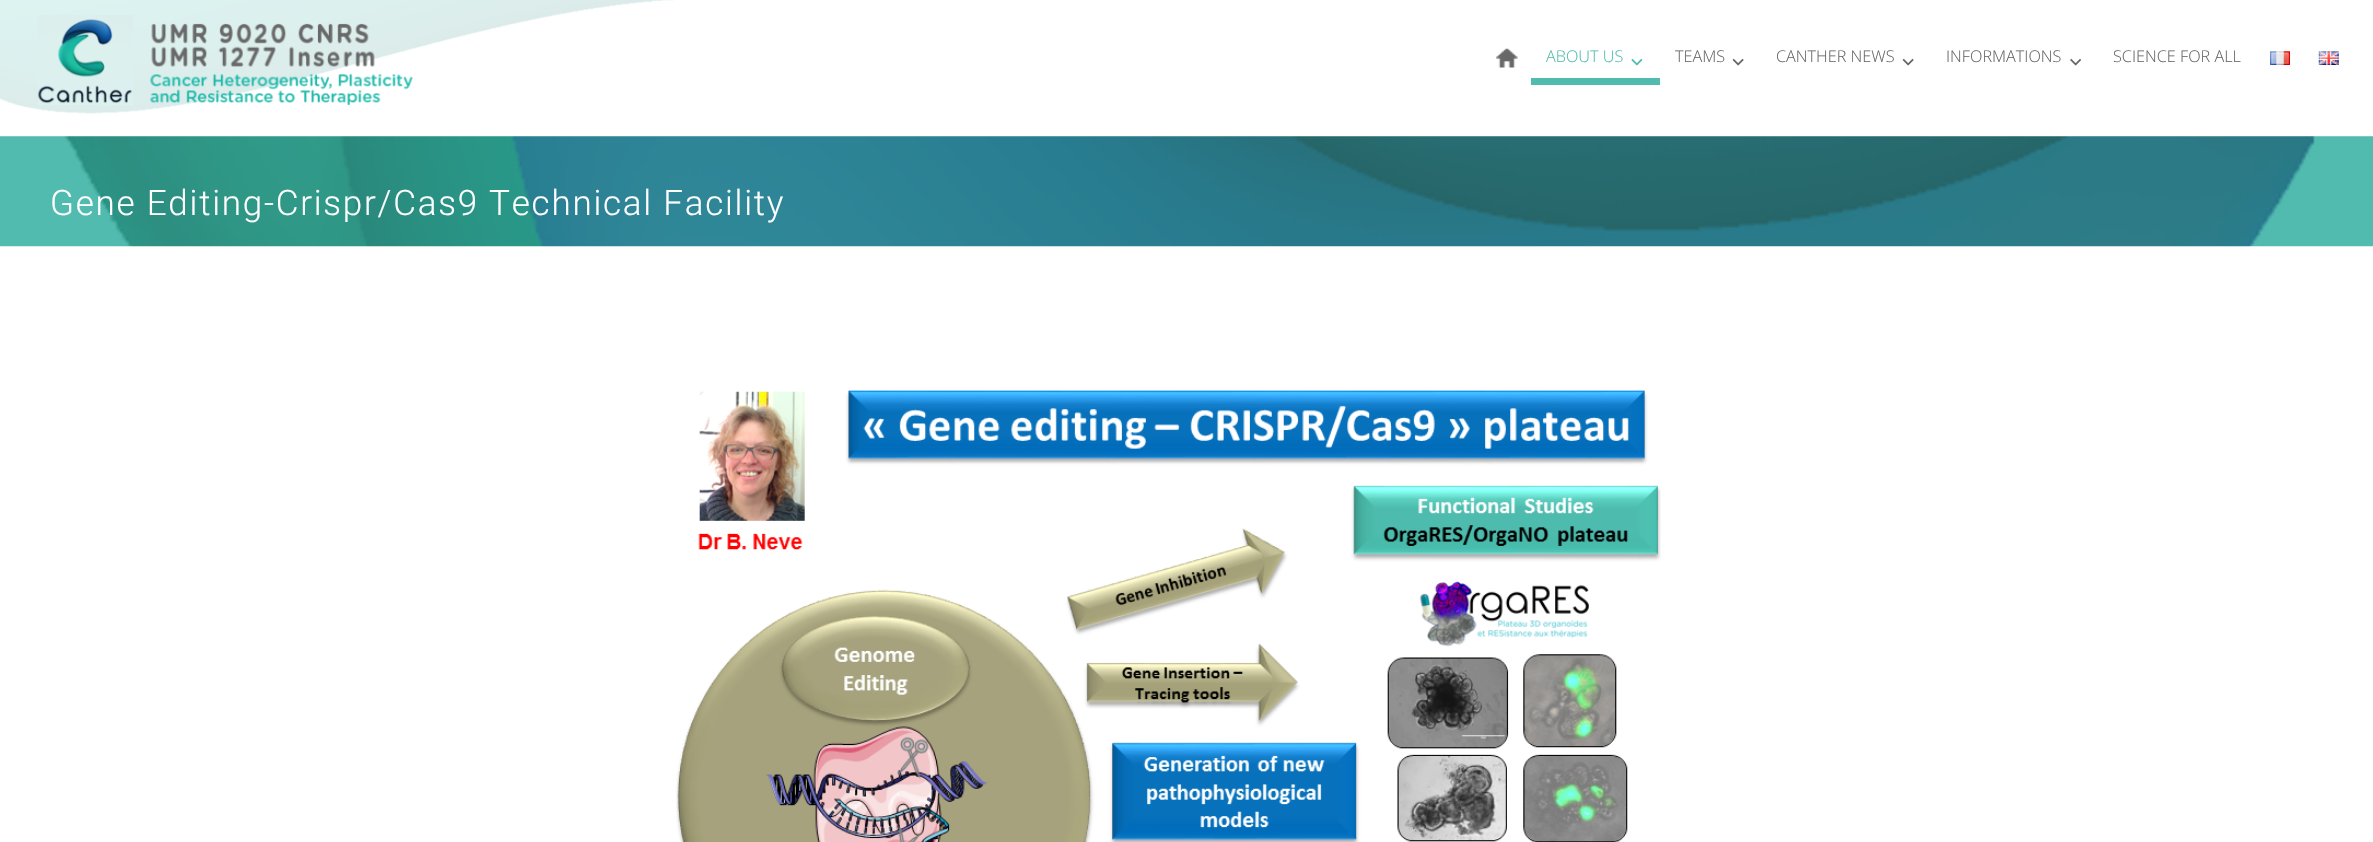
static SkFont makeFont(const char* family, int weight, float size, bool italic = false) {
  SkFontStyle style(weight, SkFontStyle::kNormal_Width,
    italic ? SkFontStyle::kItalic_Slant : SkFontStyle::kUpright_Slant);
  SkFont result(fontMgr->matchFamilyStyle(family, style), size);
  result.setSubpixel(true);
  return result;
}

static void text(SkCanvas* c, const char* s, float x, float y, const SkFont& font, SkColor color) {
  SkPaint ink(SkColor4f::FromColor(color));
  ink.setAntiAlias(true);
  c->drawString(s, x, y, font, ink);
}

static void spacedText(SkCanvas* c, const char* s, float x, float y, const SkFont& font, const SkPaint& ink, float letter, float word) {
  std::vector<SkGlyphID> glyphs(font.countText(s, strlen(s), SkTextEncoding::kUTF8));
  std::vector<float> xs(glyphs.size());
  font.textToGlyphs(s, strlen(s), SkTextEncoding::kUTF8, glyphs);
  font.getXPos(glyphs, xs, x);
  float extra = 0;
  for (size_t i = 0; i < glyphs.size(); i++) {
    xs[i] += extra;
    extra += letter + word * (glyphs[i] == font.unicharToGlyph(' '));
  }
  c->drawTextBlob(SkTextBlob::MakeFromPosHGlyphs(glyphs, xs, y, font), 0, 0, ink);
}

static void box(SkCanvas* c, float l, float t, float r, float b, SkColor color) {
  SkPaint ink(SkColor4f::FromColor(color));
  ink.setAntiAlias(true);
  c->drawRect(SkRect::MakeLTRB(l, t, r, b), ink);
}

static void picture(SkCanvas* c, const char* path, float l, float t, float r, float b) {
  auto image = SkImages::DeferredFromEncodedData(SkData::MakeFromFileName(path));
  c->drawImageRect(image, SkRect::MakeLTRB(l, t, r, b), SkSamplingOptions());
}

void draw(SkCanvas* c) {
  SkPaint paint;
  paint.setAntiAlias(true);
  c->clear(0xffffffff);
  picture(c, "img_01.png", 0, 0, 674, 114);
  picture(c, "img_02.png", 37, 15, 413, 105);
  picture(c, "img_03.png", 1496, 48, 1518, 68);
  box(c, 1531, 78, 1660, 85, 0xff52bbaf);
  SkFont face1 = makeFont("Open Sans", 300, 16.25f);
  text(c, "ABOUT US", 1546, 62, face1, 0xff52bbaf);
  picture(c, "img_04.png", 1631, 58, 1643, 66);
  text(c, "TEAMS", 1675, 62, face1, 0xff666666);
  picture(c, "img_05.png", 1732, 58, 1744, 66);
  text(c, "CANTHER NEWS", 1776, 62, face1, 0xff666666);
  picture(c, "img_05.png", 1902, 58, 1914, 66);
  text(c, "INFORMATIONS", 1946, 62, face1, 0xff666666);
  picture(c, "img_06.png", 2070, 58, 2082, 66);
  text(c, "SCIENCE FOR ALL", 2113, 62, face1, 0xff666666);
  picture(c, "img_07.png", 2270, 51, 2290, 65);
  picture(c, "img_08.png", 2318, 51, 2339, 65);
  picture(c, "img_09.png", 0, 136, 2373, 247);
  SkFont face2 = makeFont("Roboto", 300, 35);
  paint.setColor(0xffffffff);
  spacedText(c, "Gene Editing-Crispr/Cas9 Technical Facility", 50, 215, face2, paint, 1.75f, 0);
  picture(c, "img_10.png", 676, 390, 1661, 842);
}
